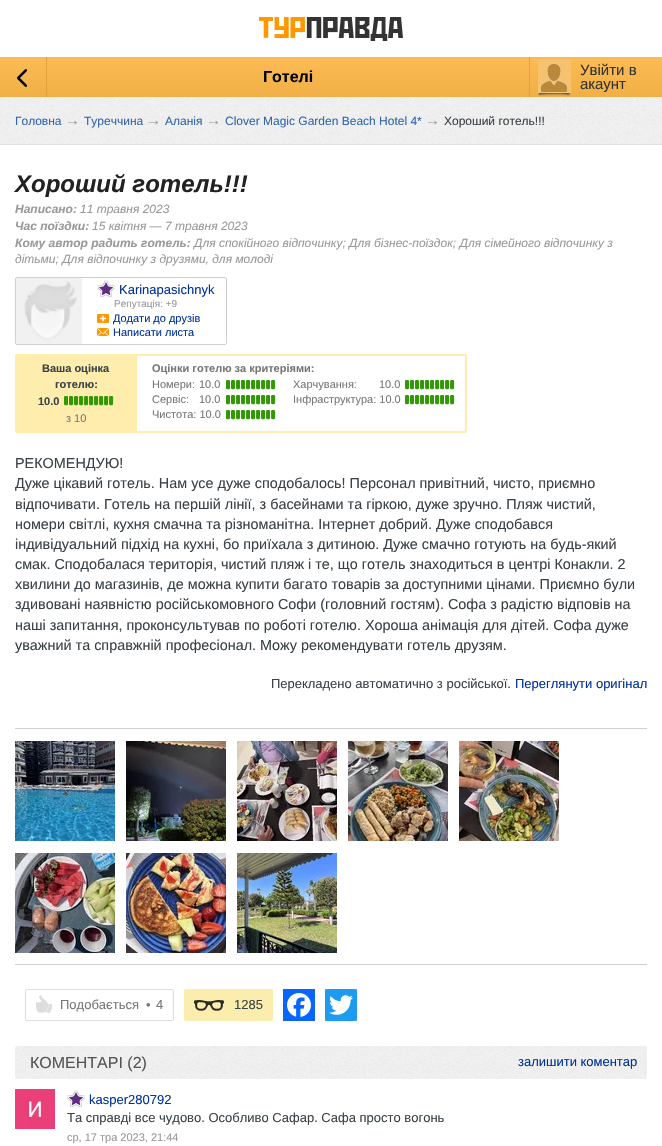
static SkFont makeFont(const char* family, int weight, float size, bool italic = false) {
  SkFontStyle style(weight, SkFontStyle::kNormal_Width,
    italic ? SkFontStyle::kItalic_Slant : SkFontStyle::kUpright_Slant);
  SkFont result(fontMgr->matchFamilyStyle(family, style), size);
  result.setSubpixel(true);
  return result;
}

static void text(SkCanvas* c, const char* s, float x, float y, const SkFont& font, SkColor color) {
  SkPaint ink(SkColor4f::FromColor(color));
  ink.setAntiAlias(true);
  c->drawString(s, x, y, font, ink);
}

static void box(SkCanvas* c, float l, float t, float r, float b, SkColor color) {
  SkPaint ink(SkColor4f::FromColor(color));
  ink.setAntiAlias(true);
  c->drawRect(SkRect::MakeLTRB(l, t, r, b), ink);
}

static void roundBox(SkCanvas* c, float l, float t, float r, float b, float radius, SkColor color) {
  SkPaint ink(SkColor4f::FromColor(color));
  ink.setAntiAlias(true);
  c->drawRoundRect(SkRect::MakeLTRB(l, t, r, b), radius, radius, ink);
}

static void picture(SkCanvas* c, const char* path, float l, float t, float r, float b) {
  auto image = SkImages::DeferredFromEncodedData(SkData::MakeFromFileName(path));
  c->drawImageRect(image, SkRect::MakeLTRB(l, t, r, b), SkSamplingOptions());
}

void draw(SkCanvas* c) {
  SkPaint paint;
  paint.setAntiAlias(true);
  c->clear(0xffffffff);
  picture(c, "img_01.png", 259, 17, 403, 41);
  {
    const SkColor colors[] = {0xfffbbb52, 0xfff0b046};
    const float stops[] = {0.1f, 1};
    const SkPoint ends[] = {{331, 57}, {331, 97}};
    paint.setShader(SkGradientShader::MakeLinear(ends, colors, stops, 2, SkTileMode::kClamp));
    paint.setAlpha(255);
  }
  c->drawRect(SkRect::MakeLTRB(0, 57, 662, 97), paint);
  picture(c, "img_02.png", 17, 69, 27, 87);
  box(c, 46, 57, 47, 97, 0xffe0a23d);
  SkFont face1 = makeFont("Liberation Sans", 700, 16);
  text(c, "Готелі", 263, 82, face1, 0xff000000);
  box(c, 529, 57, 530, 97, 0xffe0a23d);
  picture(c, "img_03.png", 537, 60, 571, 96);
  SkFont face2 = makeFont("Liberation Sans", 400, 15);
  text(c, "Увійти в", 580, 75, face2, 0xff333333);
  text(c, "акаунт", 580, 89, face2, 0xff333333);
  picture(c, "img_04.png", 0, 97, 662, 144);
  box(c, 0, 144, 662, 145, 0xffdfdfdf);
  SkFont face3 = makeFont("Liberation Sans", 400, 12);
  text(c, "Головна", 15, 125, face3, 0xff3366aa);
  text(c, "→", 65, 125, face2, 0xff999999);
  text(c, "Туреччина", 84, 125, face3, 0xff3366aa);
  text(c, "→", 146, 125, face2, 0xff999999);
  text(c, "Аланія", 165, 125, face3, 0xff3366aa);
  text(c, "→", 206, 125, face2, 0xff999999);
  text(c, "Clover Magic Garden Beach Hotel 4*", 225, 125, face3, 0xff3366aa);
  text(c, "→", 425, 125, face2, 0xff999999);
  text(c, "Хороший готель!!!", 444, 125, face3, 0xff3a4247);
  SkFont face4 = makeFont("Liberation Sans", 700, 24, true);
  text(c, "Хороший готель!!!", 15, 192, face4, 0xff222222);
  SkFont face5 = makeFont("Liberation Sans", 700, 12, true);
  text(c, "Написано:", 15, 213, face5, 0xff999999);
  SkFont face6 = makeFont("Liberation Sans", 400, 12, true);
  text(c, "11 травня 2023", 80, 213, face6, 0xff999999);
  text(c, "Час поїздки:", 15, 230, face5, 0xff999999);
  text(c, "15 квітня — 7 травня 2023", 92, 230, face6, 0xff999999);
  text(c, "Кому автор радить готель:", 15, 247, face5, 0xff999999);
  text(c, "Для спокійного відпочинку; Для бізнес-поїздок; Для сімейного відпочинку з", 194, 247, face6, 0xff999999);
  text(c, "дітьми; Для відпочинку з друзями, для молоді", 15, 263, face6, 0xff999999);
  paint.setStyle(SkPaint::kStroke_Style);
  paint.setStrokeWidth(1);
  paint.setShader(nullptr);
  paint.setColor(0xffcfcfcf);
  c->drawRoundRect(SkRect::MakeLTRB(15.5f, 277.5f, 226.5f, 344.5f), 1.5f, 1.5f, paint);
  picture(c, "img_05.png", 16, 278, 82, 344);
  picture(c, "img_06.png", 97, 280, 115, 297);
  SkFont face7 = makeFont("Liberation Sans", 400, 13);
  text(c, "Karinapasichnyk", 119, 294, face7, 0xff003399);
  SkFont face8 = makeFont("Liberation Sans", 400, 10);
  text(c, "Репутація: +9", 114, 307, face8, 0xff999999);
  picture(c, "img_07.png", 97, 314, 109, 323);
  SkFont face9 = makeFont("Liberation Sans", 400, 11);
  text(c, "Додати до друзів", 113, 322, face9, 0xff003399);
  picture(c, "img_08.png", 97, 328, 109, 336);
  text(c, "Написати листа", 113, 336, face9, 0xff003399);
  paint.setStrokeWidth(2);
  paint.setColor(0xffffedad);
  c->drawRoundRect(SkRect::MakeLTRB(16, 355, 466, 432), 1, 1, paint);
  box(c, 17, 356, 137, 431, 0xffffedad);
  SkFont face10 = makeFont("Liberation Sans", 700, 11);
  text(c, "Ваша оцінка", 42, 372, face10, 0xff3a4247);
  text(c, "готелю:", 55, 388, face10, 0xff3a4247);
  text(c, "10.0", 38, 405, face10, 0xff3a4247);
  picture(c, "img_09.png", 64, 396, 114, 406);
  text(c, "з 10", 66, 422, face9, 0xff777777);
  text(c, "Оцінки готелю за критеріями:", 152, 372, face10, 0xff777777);
  text(c, "Номери:", 152, 388, face9, 0xff777777);
  text(c, "10.0", 199, 388, face9, 0xff777777);
  picture(c, "img_10.png", 226, 380, 276, 390);
  text(c, "Сервіс:", 152, 403, face9, 0xff777777);
  text(c, "10.0", 199, 403, face9, 0xff777777);
  picture(c, "img_10.png", 226, 395, 276, 405);
  text(c, "Чистота: 10.0", 152, 418, face9, 0xff777777);
  picture(c, "img_10.png", 226, 410, 276, 420);
  text(c, "Харчування:", 293, 388, face9, 0xff777777);
  text(c, "10.0", 379, 388, face9, 0xff777777);
  picture(c, "img_10.png", 405, 380, 455, 390);
  text(c, "Інфраструктура: 10.0", 293, 403, face9, 0xff777777);
  picture(c, "img_10.png", 405, 395, 455, 405);
  SkFont face11 = makeFont("Liberation Sans", 400, 14.4f);
  text(c, "РЕКОМЕНДУЮ!", 15, 468, face11, 0xff3a4247);
  text(c, "Дуже цікавий готель. Нам усе дуже сподобалось! Персонал привітний, чисто, приємно", 15, 488, face11, 0xff3a4247);
  text(c, "відпочивати. Готель на першій лінії, з басейнами та гіркою, дуже зручно. Пляж чистий,", 15, 509, face11, 0xff3a4247);
  text(c, "номери світлі, кухня смачна та різноманітна. Інтернет добрий. Дуже сподобався", 15, 529, face11, 0xff3a4247);
  text(c, "індивідуальний підхід на кухні, бо приїхала з дитиною. Дуже смачно готують на будь-який", 15, 549, face11, 0xff3a4247);
  text(c, "смак. Сподобалася територія, чистий пляж і те, що готель знаходиться в центрі Конакли. 2", 15, 569, face11, 0xff3a4247);
  text(c, "хвилини до магазинів, де можна купити багато товарів за доступними цінами. Приємно були", 15, 589, face11, 0xff3a4247);
  text(c, "здивовані наявністю російськомовного Софи (головний гостям). Софа з радістю відповів на", 15, 609, face11, 0xff3a4247);
  text(c, "наші запитання, проконсультував по роботі готелю. Хороша анімація для дітей. Софа дуже", 15, 630, face11, 0xff3a4247);
  text(c, "уважний та справжній професіонал. Можу рекомендувати готель друзям.", 15, 650, face11, 0xff3a4247);
  text(c, "Перекладено автоматично з російської.", 271, 688, face7, 0xff3a4247);
  text(c, "Переглянути оригінал", 515, 688, face7, 0xff003399);
  box(c, 15, 728, 647, 729, 0xffcfcfcf);
  picture(c, "img_11.png", 15, 741, 115, 841);
  picture(c, "img_12.png", 126, 741, 226, 841);
  picture(c, "img_13.png", 237, 741, 337, 841);
  picture(c, "img_14.png", 348, 741, 448, 841);
  picture(c, "img_15.png", 459, 741, 559, 841);
  picture(c, "img_16.png", 15, 853, 115, 953);
  picture(c, "img_17.png", 126, 853, 226, 953);
  picture(c, "img_18.png", 237, 853, 337, 953);
  box(c, 15, 964, 647, 965, 0xffcfcfcf);
  paint.setStrokeWidth(1);
  paint.setColor(0xffdddddd);
  c->drawRoundRect(SkRect::MakeLTRB(25.5f, 989.5f, 173.5f, 1020.5f), 1.5f, 1.5f, paint);
  picture(c, "img_19.png", 36, 995, 52, 1013);
  text(c, "Подобається", 60, 1009, face7, 0xff777777);
  text(c, "•", 146, 1009, face7, 0xff777777);
  text(c, "4", 156, 1009, face7, 0xff777777);
  roundBox(c, 184, 989, 273, 1021, 2, 0xfffaedae);
  picture(c, "img_20.png", 194, 1000, 224, 1011);
  text(c, "1285", 234, 1009, face7, 0xff3a4247);
  box(c, 283, 989, 315, 1021, 0xff3b5998);
  roundBox(c, 283, 989, 315, 1021, 4, 0xff0866ff);
  picture(c, "img_21.png", 287, 993, 311, 1017);
  box(c, 325, 989, 357, 1021, 0xff55acee);
  roundBox(c, 325, 989, 357, 1021, 4, 0xff1d9bf0);
  picture(c, "img_22.png", 329, 995, 353, 1015);
  picture(c, "img_23.png", 15, 1046, 647, 1079);
  SkFont face12 = makeFont("Liberation Sans", 400, 16);
  text(c, "КОМЕНТАРІ (2)", 30, 1068, face12, 0xff555555);
  text(c, "залишити коментар", 518, 1066, face7, 0xff003399);
  picture(c, "img_24.png", 15, 1089, 55, 1129);
  picture(c, "img_06.png", 67, 1090, 85, 1107);
  text(c, "kasper280792", 89, 1104, face7, 0xff003399);
  text(c, "Та справді все чудово. Особливо Сафар. Сафа просто вогонь", 67, 1122, face7, 0xff3a4247);
  text(c, "ср, 17 тра 2023, 21:44", 67, 1141, face9, 0xff999999);
}
